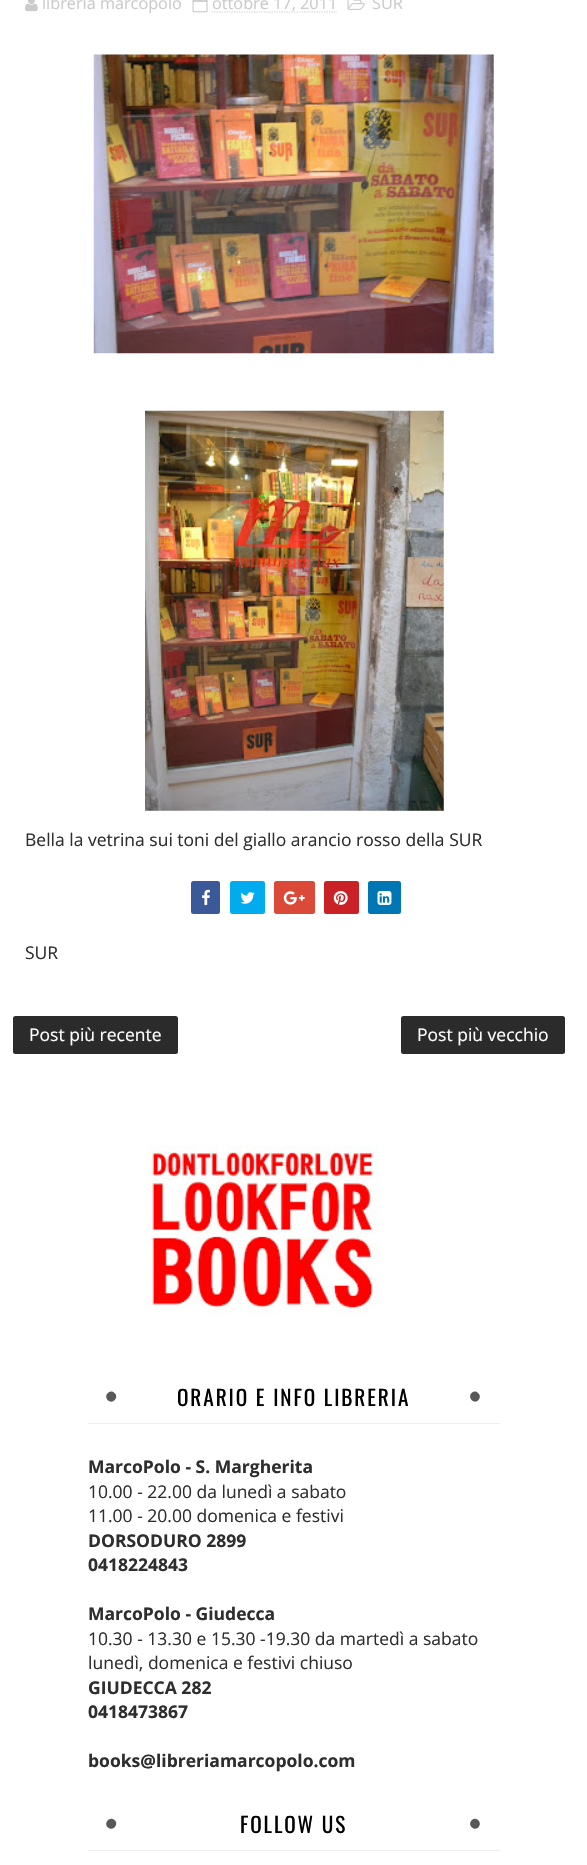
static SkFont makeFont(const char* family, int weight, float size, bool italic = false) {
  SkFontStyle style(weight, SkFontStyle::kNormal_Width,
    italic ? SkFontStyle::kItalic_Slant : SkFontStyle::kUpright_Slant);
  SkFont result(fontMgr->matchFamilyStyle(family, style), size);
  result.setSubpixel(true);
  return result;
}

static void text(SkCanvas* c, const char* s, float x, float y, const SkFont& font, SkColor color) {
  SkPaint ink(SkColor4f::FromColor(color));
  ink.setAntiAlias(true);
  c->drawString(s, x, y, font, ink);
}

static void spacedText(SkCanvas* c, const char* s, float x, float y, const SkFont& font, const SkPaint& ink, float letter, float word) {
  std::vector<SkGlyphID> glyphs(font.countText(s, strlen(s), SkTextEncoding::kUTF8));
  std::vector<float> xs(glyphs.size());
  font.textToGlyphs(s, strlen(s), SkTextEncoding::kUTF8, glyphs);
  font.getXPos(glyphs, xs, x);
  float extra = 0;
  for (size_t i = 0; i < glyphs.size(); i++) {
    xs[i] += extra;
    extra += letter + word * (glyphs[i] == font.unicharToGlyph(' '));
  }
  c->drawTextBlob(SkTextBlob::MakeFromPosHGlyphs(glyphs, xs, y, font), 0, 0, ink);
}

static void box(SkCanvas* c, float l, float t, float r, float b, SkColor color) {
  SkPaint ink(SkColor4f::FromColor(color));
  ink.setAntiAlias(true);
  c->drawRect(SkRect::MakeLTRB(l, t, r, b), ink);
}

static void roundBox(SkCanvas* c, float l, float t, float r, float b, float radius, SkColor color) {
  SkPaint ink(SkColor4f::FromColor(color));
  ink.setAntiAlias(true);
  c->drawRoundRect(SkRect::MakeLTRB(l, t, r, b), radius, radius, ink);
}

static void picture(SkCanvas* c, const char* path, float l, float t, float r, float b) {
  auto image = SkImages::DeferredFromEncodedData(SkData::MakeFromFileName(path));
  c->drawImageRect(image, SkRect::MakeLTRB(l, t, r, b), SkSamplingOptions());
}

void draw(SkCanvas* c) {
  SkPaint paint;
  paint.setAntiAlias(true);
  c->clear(0xffffffff);
  picture(c, "img_01.png", 25, 0, 38, 12);
  SkFont face1 = makeFont("Open Sans", 400, 16.25f);
  text(c, "libreria marcopolo", 42, 9, face1, 0xffcbcbcb);
  picture(c, "img_02.png", 192, 0, 208, 13);
  paint.setStyle(SkPaint::kStroke_Style);
  paint.setStrokeWidth(1.2f);
  paint.setColor(0xffcbcbcb);
  paint.setPathEffect(SkDashPathEffect::Make({{1.25f, 1.25f}}, 0));
  c->drawPath(SkPathBuilder().moveTo(211.5f, 12).lineTo(337, 12).detach(), paint);
  paint.setPathEffect(nullptr);
  text(c, "ottobre 17, 2011", 212, 9, face1, 0xffcbcbcb);
  picture(c, "img_03.png", 347, 0, 365, 10);
  text(c, "SUR", 372, 9, face1, 0xffcbcbcb);
  picture(c, "img_04.png", 93, 54, 494, 354);
  picture(c, "img_05.png", 145, 410, 444, 811);
  SkFont face2 = makeFont("Open Sans", 400, 17.5f);
  text(c, "Bella la vetrina sui toni del giallo arancio rosso della SUR", 25, 846, face2, 0xff2e2e2e);
  roundBox(c, 191, 881, 220, 914, 2.5f, 0xff3b5998);
  picture(c, "img_06.png", 202, 889, 210, 905);
  roundBox(c, 230, 881, 265, 914, 2.5f, 0xff00acee);
  picture(c, "img_07.png", 240, 892, 255, 904);
  roundBox(c, 274, 881, 315, 914, 2.5f, 0xffdb4a39);
  picture(c, "img_08.png", 283, 891, 305, 905);
  roundBox(c, 324, 881, 359, 914, 2.5f, 0xffca2127);
  picture(c, "img_09.png", 333, 891, 348, 905);
  roundBox(c, 368, 881, 401, 914, 2.5f, 0xff0077b5);
  picture(c, "img_10.png", 377, 891, 392, 905);
  text(c, "SUR", 25, 959, face2, 0xff2e2e2e);
  roundBox(c, 13, 1016, 178, 1054, 2.5f, 0xff2b2b2b);
  text(c, "Post più recente", 29, 1041, face2, 0xffffffff);
  roundBox(c, 401, 1016, 565, 1054, 2.5f, 0xff2b2b2b);
  text(c, "Post più vecchio", 417, 1041, face2, 0xffffffff);
  picture(c, "img_11.png", 147, 1145, 378, 1315);
  box(c, 88, 1423, 500, 1424, 0xffeeeeee);
  paint.setStyle(SkPaint::kFill_Style);
  paint.setColor(0xff585858);
  c->drawPath(SkPathBuilder().moveTo(114.5f, 1393).cubicTo(119.5f, 1397, 113, 1404.5f, 108, 1400.5f).cubicTo(103, 1396, 109.5f, 1388.5f, 114.5f, 1393).close().detach(), paint);
  SkFont face3 = makeFont("Oswald", 400, 21.25f);
  paint.setColor(0xff000000);
  spacedText(c, "ORARIO E INFO LIBRERIA", 177, 1406, face3, paint, 1.9f, 0);
  paint.setColor(0xff585858);
  c->drawPath(SkPathBuilder().moveTo(478, 1393).cubicTo(483, 1397, 477, 1404.5f, 472, 1400.5f).cubicTo(467, 1396, 473, 1388.5f, 478, 1393).close().detach(), paint);
  SkFont face4 = makeFont("Open Sans", 700, 17.5f);
  text(c, "MarcoPolo - S. Margherita", 88, 1473, face4, 0xff2e2e2e);
  text(c, "10.00 - 22.00 da lunedì a sabato", 88, 1498, face2, 0xff2e2e2e);
  text(c, "11.00 - 20.00 domenica e festivi", 88, 1522, face2, 0xff2e2e2e);
  text(c, "DORSODURO 2899", 88, 1547, face4, 0xff2e2e2e);
  text(c, "0418224843", 88, 1571, face4, 0xff2e2e2e);
  text(c, "MarcoPolo - Giudecca", 88, 1620, face4, 0xff2e2e2e);
  text(c, "10.30 - 13.30 e 15.30 -19.30 da martedì a sabato", 88, 1645, face2, 0xff2e2e2e);
  text(c, "lunedì, domenica e festivi chiuso", 88, 1669, face2, 0xff2e2e2e);
  text(c, "GIUDECCA 282", 88, 1694, face4, 0xff2e2e2e);
  text(c, "0418473867", 88, 1718, face4, 0xff2e2e2e);
  text(c, "books@libreriamarcopolo.com", 88, 1767, face4, 0xff2e2e2e);
  box(c, 88, 1850, 500, 1851, 0xffeeeeee);
  c->drawPath(SkPathBuilder().moveTo(114.5f, 1820).cubicTo(119.5f, 1824, 113, 1832, 108, 1827.5f).cubicTo(103, 1823.5f, 109.5f, 1815.5f, 114.5f, 1820).close().detach(), paint);
  paint.setColor(0xff000000);
  spacedText(c, "FOLLOW US", 240, 1833, face3, paint, 1.9f, 0);
  paint.setColor(0xff585858);
  c->drawPath(SkPathBuilder().moveTo(478, 1820).cubicTo(483, 1824, 477, 1832, 472, 1827.5f).cubicTo(467, 1823.5f, 473, 1815.5f, 478, 1820).close().detach(), paint);
}
